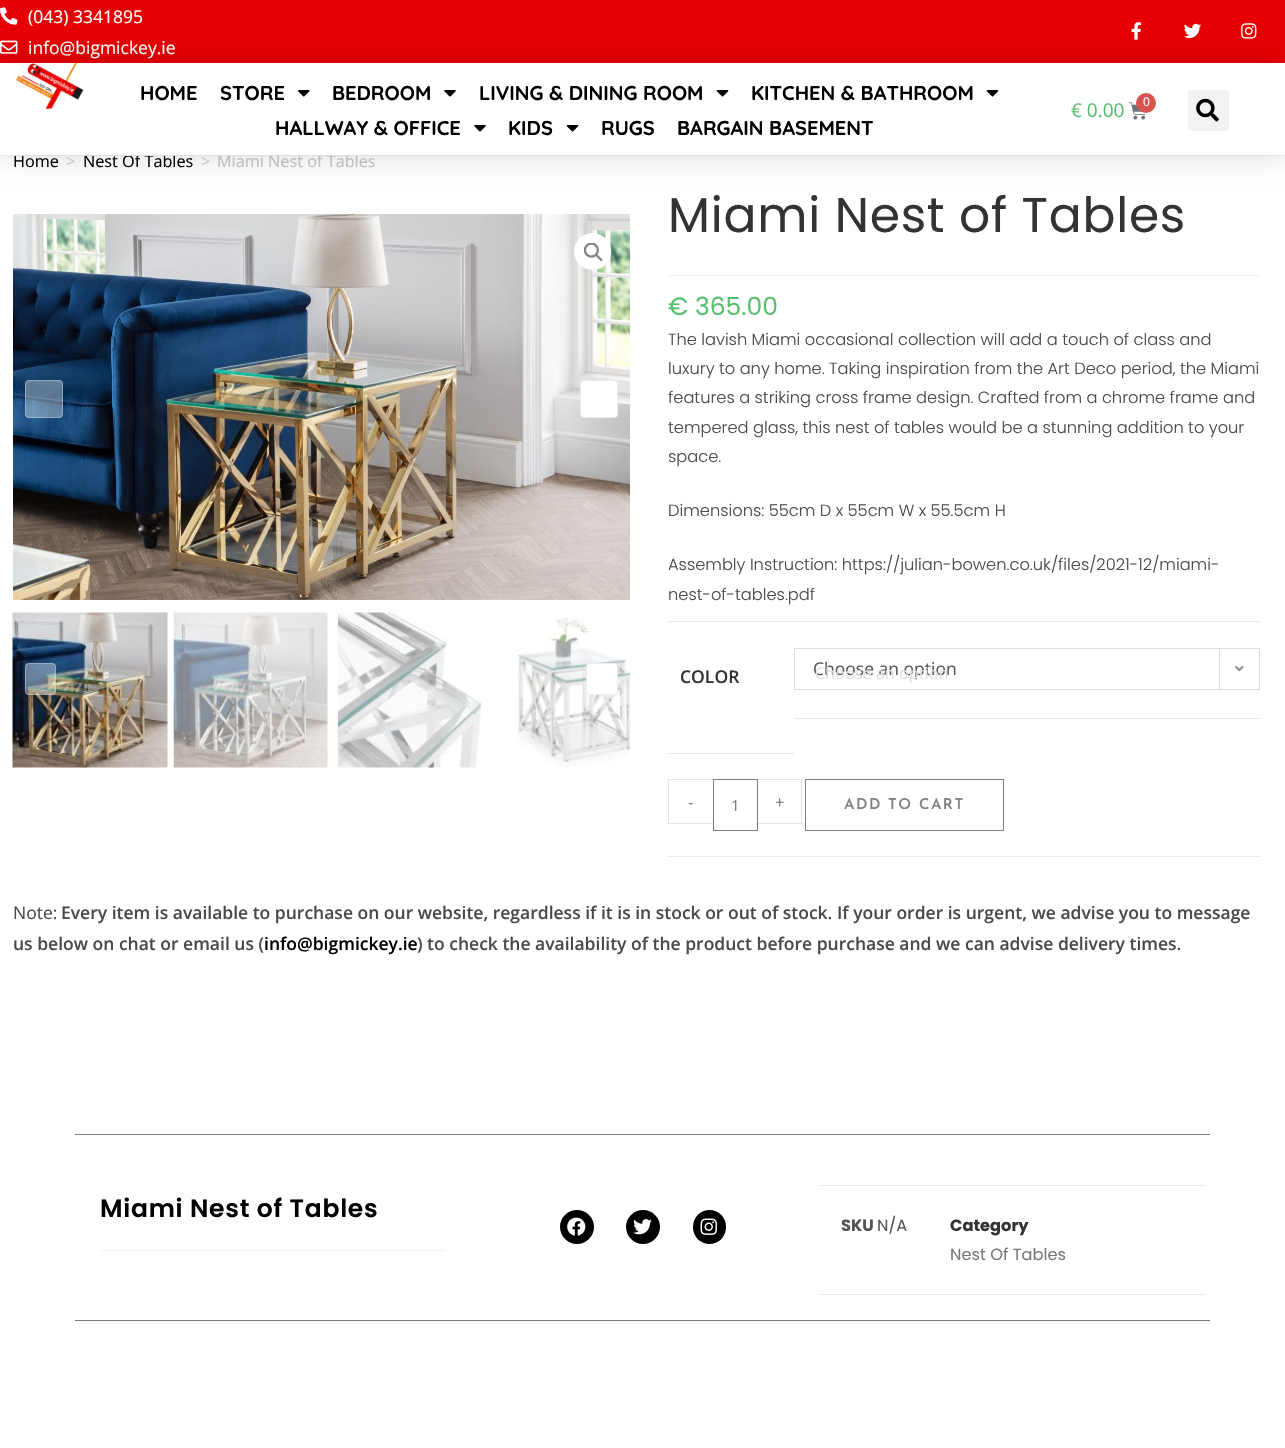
static SkFont makeFont(const char* family, int weight, float size, bool italic = false) {
  SkFontStyle style(weight, SkFontStyle::kNormal_Width,
    italic ? SkFontStyle::kItalic_Slant : SkFontStyle::kUpright_Slant);
  SkFont result(fontMgr->matchFamilyStyle(family, style), size);
  result.setSubpixel(true);
  return result;
}

static void text(SkCanvas* c, const char* s, float x, float y, const SkFont& font, SkColor color) {
  SkPaint ink(SkColor4f::FromColor(color));
  ink.setAntiAlias(true);
  c->drawString(s, x, y, font, ink);
}

static void spacedText(SkCanvas* c, const char* s, float x, float y, const SkFont& font, const SkPaint& ink, float letter, float word) {
  std::vector<SkGlyphID> glyphs(font.countText(s, strlen(s), SkTextEncoding::kUTF8));
  std::vector<float> xs(glyphs.size());
  font.textToGlyphs(s, strlen(s), SkTextEncoding::kUTF8, glyphs);
  font.getXPos(glyphs, xs, x);
  float extra = 0;
  for (size_t i = 0; i < glyphs.size(); i++) {
    xs[i] += extra;
    extra += letter + word * (glyphs[i] == font.unicharToGlyph(' '));
  }
  c->drawTextBlob(SkTextBlob::MakeFromPosHGlyphs(glyphs, xs, y, font), 0, 0, ink);
}

static void box(SkCanvas* c, float l, float t, float r, float b, SkColor color) {
  SkPaint ink(SkColor4f::FromColor(color));
  ink.setAntiAlias(true);
  c->drawRect(SkRect::MakeLTRB(l, t, r, b), ink);
}

static void roundBox(SkCanvas* c, float l, float t, float r, float b, float radius, SkColor color) {
  SkPaint ink(SkColor4f::FromColor(color));
  ink.setAntiAlias(true);
  c->drawRoundRect(SkRect::MakeLTRB(l, t, r, b), radius, radius, ink);
}

static void picture(SkCanvas* c, const char* path, float l, float t, float r, float b) {
  auto image = SkImages::DeferredFromEncodedData(SkData::MakeFromFileName(path));
  c->drawImageRect(image, SkRect::MakeLTRB(l, t, r, b), SkSamplingOptions());
}

void draw(SkCanvas* c) {
  SkPaint paint;
  paint.setAntiAlias(true);
  c->clear(0xffffffff);
  SkFont face1 = makeFont("Open Sans", 400, 16.25f);
  text(c, "Nest Of Tables", 83, 167, face1, 0xff000000);
  text(c, "Miami Nest of Tables", 217, 167, face1, 0xffc6c6c6);
  box(c, 137, 154, 358, 155, 0xffffffff);
  text(c, "Home", 13, 167, face1, 0xff000000);
  box(c, 0, 155, 1285, 156, 0xfff1f1f1);
  box(c, 0, 0, 1285, 63, 0xffe60003);
  picture(c, "img_01.png", 0, 7, 18, 25);
  SkFont face2 = makeFont("Open Sans", 400, 17.5f);
  text(c, "(043) 3341895", 28, 23, face2, 0xffffffff);
  picture(c, "img_02.png", 0, 40, 18, 54);
  text(c, "info@bigmickey.ie", 28, 54, face2, 0xffffffff);
  picture(c, "img_03.png", 1131, 22, 1141, 40);
  picture(c, "img_04.png", 1184, 23, 1202, 39);
  picture(c, "img_05.png", 1241, 23, 1257, 39);
  c->save();
  c->clipPath(SkPathBuilder(SkPathFillType::kEvenOdd).moveTo(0, 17).lineTo(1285, 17).lineTo(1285, 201).lineTo(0, 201).close().moveTo(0, 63).lineTo(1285, 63).lineTo(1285, 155).lineTo(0, 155).close().detach(), true);
  paint.setColor(0x26000000);
  paint.setMaskFilter(SkMaskFilter::MakeBlur(kNormal_SkBlurStyle, 15));
  c->drawRect(SkRect::MakeLTRB(0, 63, 1285, 155), paint);
  paint.setMaskFilter(nullptr);
  c->restore();
  picture(c, "img_06.png", 16, 62, 84, 109);
  SkFont face3 = makeFont("Quicksand", 700, 20);
  text(c, "HOME", 140, 100, face3, 0xff000000);
  text(c, "STORE", 220, 100, face3, 0xff000000);
  picture(c, "img_07.png", 298, 90, 310, 97);
  text(c, "BEDROOM", 332, 100, face3, 0xff000000);
  picture(c, "img_08.png", 444, 90, 456, 97);
  text(c, "LIVING & DINING ROOM", 479, 100, face3, 0xff000000);
  picture(c, "img_09.png", 716, 90, 729, 97);
  text(c, "KITCHEN & BATHROOM", 751, 100, face3, 0xff000000);
  picture(c, "img_09.png", 986, 90, 999, 97);
  text(c, "HALLWAY & OFFICE", 275, 135, face3, 0xff000000);
  picture(c, "img_08.png", 474, 125, 486, 132);
  text(c, "KIDS", 508, 135, face3, 0xff000000);
  picture(c, "img_09.png", 566, 125, 579, 132);
  text(c, "RUGS", 601, 135, face3, 0xff000000);
  text(c, "BARGAIN BASEMENT", 677, 135, face3, 0xff000000);
  picture(c, "img_10.png", 1128, 102, 1146, 120);
  paint.setColor(0xffd9534f);
  c->drawCircle(1146, 103, 10, paint);
  SkFont face4 = makeFont("Open Sans", 400, 12);
  text(c, "0", 1143, 106, face4, 0xffffffff);
  SkFont face5 = makeFont("Open Sans", 400, 19);
  text(c, "€ 0.00", 1071, 117, face5, 0xff57bf6d);
  roundBox(c, 1188, 90, 1229, 131, 4, 0xfff2f2f2);
  picture(c, "img_11.png", 1196, 98, 1219, 122);
  text(c, ">", 66, 167, face1, 0xffc6c6c6);
  text(c, ">", 201, 167, face1, 0xffc6c6c6);
  picture(c, "img_12.png", 13, 214, 630, 600);
  paint.setColor(0xffffffff);
  c->drawCircle(592.5f, 251.5f, 18.5f, paint);
  picture(c, "img_13.png", 584, 243, 603, 261);
  roundBox(c, 25, 380, 63, 418, 4, 0x59ffffff);
  paint.setStyle(SkPaint::kStroke_Style);
  paint.setStrokeWidth(1);
  paint.setColor(0x59edecf6);
  c->drawRoundRect(SkRect::MakeLTRB(25.5f, 380.5f, 62.5f, 417.5f), 3.5f, 3.5f, paint);
  paint.setStyle(SkPaint::kFill_Style);
  paint.setColor(0xffffffff);
  c->drawRoundRect(SkRect::MakeLTRB(580.5f, 380.5f, 617.5f, 417.5f), 3.5f, 3.5f, paint);
  paint.setStyle(SkPaint::kStroke_Style);
  paint.setColor(0xffedecf6);
  c->drawRoundRect(SkRect::MakeLTRB(580.5f, 380.5f, 617.5f, 417.5f), 3.5f, 3.5f, paint);
  picture(c, "img_14.png", 12, 612, 168, 768);
  picture(c, "img_15.png", 173, 612, 328, 768);
  picture(c, "img_16.png", 334, 612, 482, 768);
  picture(c, "img_17.png", 517, 615, 630, 767);
  roundBox(c, 25, 663, 56, 695, 4, 0x59ffffff);
  paint.setColor(0x59edecf6);
  c->drawRoundRect(SkRect::MakeLTRB(25.5f, 663.5f, 55.5f, 694.5f), 3.5f, 3.5f, paint);
  paint.setStyle(SkPaint::kFill_Style);
  paint.setColor(0xffffffff);
  c->drawRoundRect(SkRect::MakeLTRB(586.5f, 663.5f, 617.5f, 694.5f), 3.5f, 3.5f, paint);
  paint.setStyle(SkPaint::kStroke_Style);
  paint.setColor(0xffedecf6);
  c->drawRoundRect(SkRect::MakeLTRB(586.5f, 663.5f, 617.5f, 694.5f), 3.5f, 3.5f, paint);
  box(c, 668, 275, 1260, 276, 0xfff1f1f1);
  SkFont face6 = makeFont("Poppins", 400, 48.75f);
  paint.setStyle(SkPaint::kFill_Style);
  paint.setColor(0xff333333);
  spacedText(c, "Miami Nest of Tables", 668, 232, face6, paint, 0.75f, 0);
  SkFont face7 = makeFont("Poppins", 400, 25);
  text(c, "€ 365.00", 668, 315, face7, 0xff57bf6d);
  SkFont face8 = makeFont("Poppins", 300, 16.25f);
  text(c, "The lavish Miami occasional collection will add a touch of class and", 668, 345, face8, 0xff4a4a4a);
  text(c, "luxury to any home. Taking inspiration from the Art Deco period, the Miami", 668, 374, face8, 0xff4a4a4a);
  text(c, "features a striking cross frame design. Crafted from a chrome frame and", 668, 403, face8, 0xff4a4a4a);
  text(c, "tempered glass, this nest of tables would be a stunning addition to your", 668, 433, face8, 0xff4a4a4a);
  text(c, "space.", 668, 462, face8, 0xff4a4a4a);
  text(c, "Dimensions: 55cm D x 55cm W x 55.5cm H", 668, 516, face8, 0xff4a4a4a);
  text(c, "Assembly Instruction: https://julian-bowen.co.uk/files/2021-12/miami-", 668, 570, face8, 0xff4a4a4a);
  text(c, "nest-of-tables.pdf", 668, 600, face8, 0xff4a4a4a);
  box(c, 668, 621, 1260, 622, 0xffeaeaea);
  box(c, 668, 856, 1260, 857, 0xffeaeaea);
  box(c, 668, 753, 794, 754, 0xffe9e9e9);
  SkFont face9 = makeFont("Open Sans", 600, 17.5f);
  text(c, "COLOR", 680, 683, face9, 0xff333333);
  box(c, 794, 718, 1260, 719, 0xffe9e9e9);
  paint.setStyle(SkPaint::kStroke_Style);
  paint.setColor(0xffdddddd);
  c->drawRect(SkRect::MakeLTRB(794.5f, 648.5f, 1259.5f, 689.5f), paint);
  text(c, "Choose an option", 813, 675, face2, 0xff555555);
  box(c, 1219, 649, 1220, 689, 0xffdddddd);
  picture(c, "img_18.png", 1235, 665, 1244, 672);
  text(c, "Choose an option", 815, 679, face1, 0xffe1e1e1);
  box(c, 668, 779, 713, 780, 0xffe4e4e4);
  box(c, 668, 823, 713, 824, 0xffe4e4e4);
  box(c, 668, 779, 669, 824, 0xffe4e4e4);
  text(c, "-", 688, 808, face1, 0xff777777);
  paint.setColor(0xff7a7a7a);
  c->drawRect(SkRect::MakeLTRB(713.5f, 779.5f, 757.5f, 830.5f), paint);
  SkFont face10 = makeFont("Open Sans", 400, 15);
  text(c, "1", 731, 811, face10, 0xff777777);
  box(c, 758, 779, 803, 780, 0xffe4e4e4);
  box(c, 801, 779, 802, 824, 0xffe4e4e4);
  box(c, 758, 823, 803, 824, 0xffe4e4e4);
  text(c, "+", 775, 808, face1, 0xff777777);
  paint.setColor(0xff808080);
  c->drawRect(SkRect::MakeLTRB(805.5f, 779.5f, 1003.5f, 830.5f), paint);
  SkFont face11 = makeFont("Josefin Sans", 600, 15);
  paint.setStyle(SkPaint::kFill_Style);
  spacedText(c, "ADD TO CART", 844, 809, face11, paint, 1.5f, 0);
  text(c, "Note:", 13, 919, face2, 0xff4a4a4a);
  text(c, "Every item is available to purchase on our website, regardless if it is in stock or out of stock. If your order is urgent, we advise you to message", 61, 919, face9, 0xff4a4a4a);
  text(c, "us below on chat or email us (", 13, 950, face9, 0xff4a4a4a);
  text(c, "info@bigmickey.ie", 264, 950, face9, 0xff000000);
  text(c, ") to check the availability of the product before purchase and we can advise delivery times.", 417, 950, face9, 0xff4a4a4a);
  box(c, 75, 1134, 1210, 1135, 0xff7a7a7a);
  box(c, 75, 1320, 1210, 1321, 0xff7a7a7a);
  box(c, 100, 1250, 445, 1251, 0xfff1f1f1);
  SkFont face12 = makeFont("Poppins", 600, 25);
  paint.setColor(0xff000000);
  spacedText(c, "Miami Nest of Tables", 100, 1217, face12, paint, 0.75f, 0);
  c->drawCircle(577, 1227, 17, paint);
  picture(c, "img_19.png", 567, 1217, 586, 1236);
  c->drawCircle(643, 1227, 17, paint);
  picture(c, "img_20.png", 633, 1219, 652, 1235);
  roundBox(c, 693, 1210, 726, 1244, 16.5f, 0xff000000);
  picture(c, "img_21.png", 700, 1218, 717, 1235);
  box(c, 820, 1185, 1206, 1186, 0xffeaeaea);
  box(c, 820, 1294, 1206, 1295, 0xffeaeaea);
  SkFont face13 = makeFont("Poppins", 700, 16.25f);
  text(c, "SKU", 841, 1231, face13, 0xff555555);
  SkFont face14 = makeFont("Poppins", 400, 16.25f);
  text(c, "N/A", 877, 1231, face14, 0xff555555);
  text(c, "Category", 950, 1231, face13, 0xff333333);
  text(c, "Nest Of Tables", 950, 1260, face14, 0xff777777);
}
